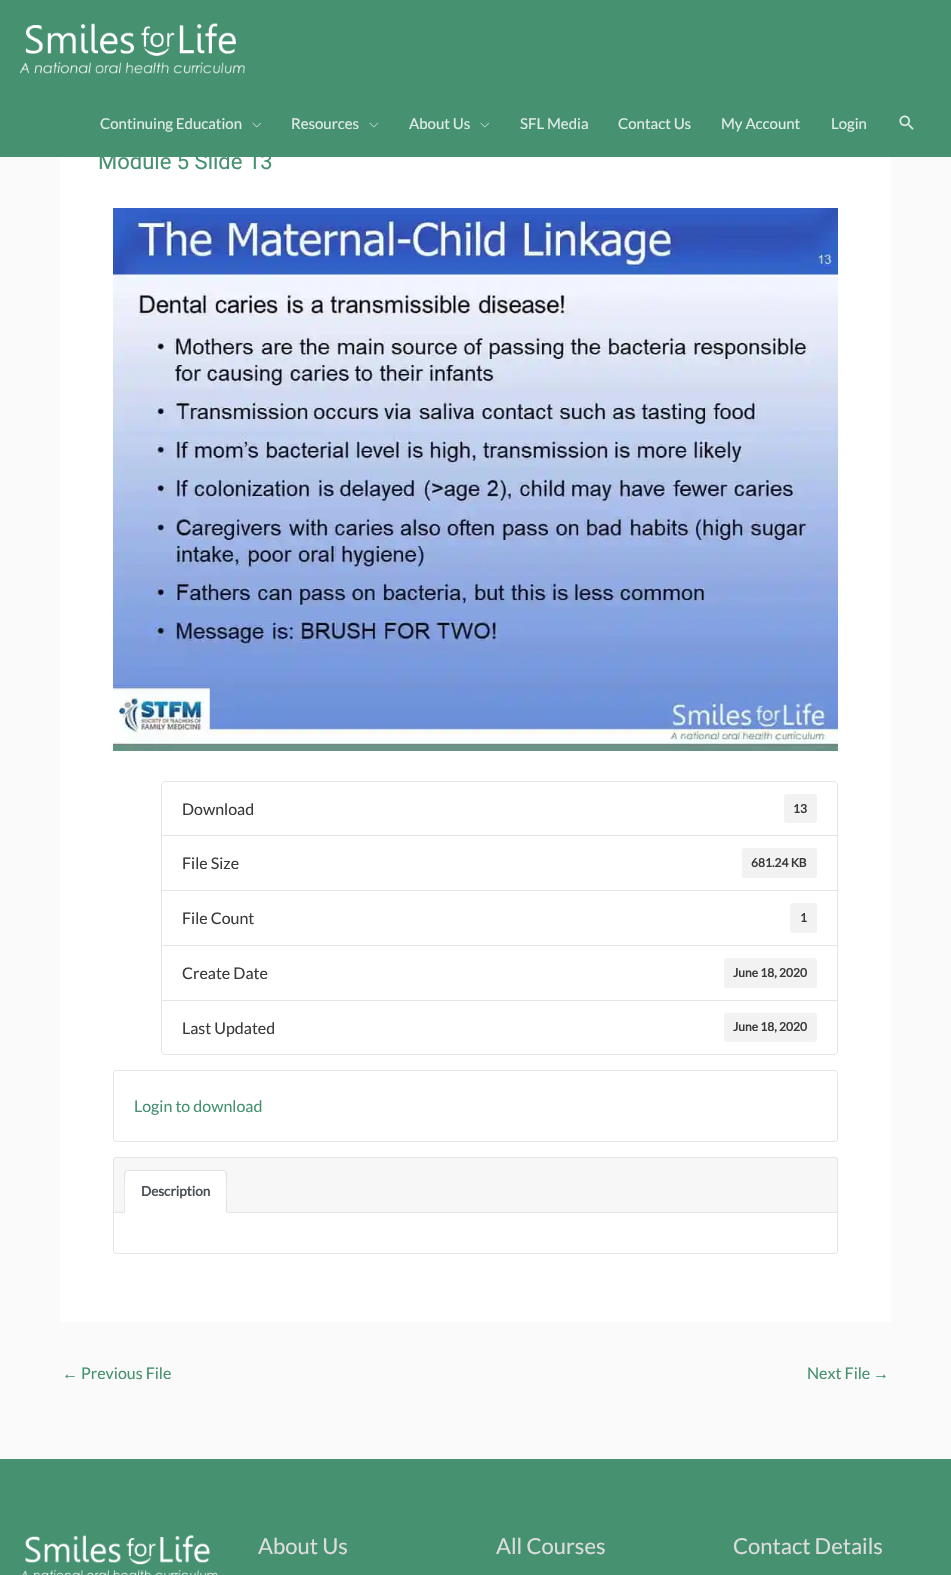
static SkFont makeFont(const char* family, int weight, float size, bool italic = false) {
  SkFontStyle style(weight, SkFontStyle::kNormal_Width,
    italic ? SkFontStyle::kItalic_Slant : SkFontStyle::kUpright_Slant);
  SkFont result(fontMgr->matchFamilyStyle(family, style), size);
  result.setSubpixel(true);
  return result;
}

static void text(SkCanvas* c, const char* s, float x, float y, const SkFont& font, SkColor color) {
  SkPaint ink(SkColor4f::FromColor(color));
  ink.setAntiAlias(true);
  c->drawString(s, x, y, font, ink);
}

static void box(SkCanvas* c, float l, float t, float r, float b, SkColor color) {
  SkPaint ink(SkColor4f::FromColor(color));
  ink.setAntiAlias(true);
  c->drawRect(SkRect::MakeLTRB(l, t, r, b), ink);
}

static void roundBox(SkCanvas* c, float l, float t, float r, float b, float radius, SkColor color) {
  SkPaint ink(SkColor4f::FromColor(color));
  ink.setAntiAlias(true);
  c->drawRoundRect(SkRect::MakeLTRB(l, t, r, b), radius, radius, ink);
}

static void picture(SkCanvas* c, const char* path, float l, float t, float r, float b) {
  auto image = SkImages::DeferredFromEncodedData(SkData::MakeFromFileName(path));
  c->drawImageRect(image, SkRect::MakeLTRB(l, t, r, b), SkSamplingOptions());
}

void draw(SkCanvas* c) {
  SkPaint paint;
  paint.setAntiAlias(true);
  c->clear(0xfffafafa);
  box(c, 0, 0, 951, 157, 0xff459170);
  picture(c, "img_01.png", 20, 23, 245, 74);
  SkFont face1 = makeFont("Lato", 400, 15);
  text(c, "Continuing Education", 100, 129, face1, 0xffe1ede8);
  picture(c, "img_02.png", 252, 122, 261, 128);
  text(c, "Resources", 291, 129, face1, 0xffe1ede8);
  picture(c, "img_02.png", 369, 122, 378, 128);
  text(c, "About Us", 409, 129, face1, 0xffe1ede8);
  picture(c, "img_02.png", 480, 122, 489, 128);
  text(c, "SFL Media", 520, 129, face1, 0xffe1ede8);
  text(c, "Contact Us", 618, 129, face1, 0xffe1ede8);
  text(c, "My Account", 721, 129, face1, 0xffe1ede8);
  text(c, "Login", 831, 129, face1, 0xffe1ede8);
  picture(c, "img_03.png", 899, 115, 914, 130);
  box(c, 60, 157, 891, 1322, 0xffffffff);
  SkFont face2 = makeFont("Roboto", 400, 22);
  text(c, "Module 5 Slide 13", 98, 169, face2, 0xff459170);
  picture(c, "img_04.png", 113, 208, 838, 751);
  paint.setStyle(SkPaint::kStroke_Style);
  paint.setStrokeWidth(1);
  paint.setColor(0xffe5e5e5);
  c->drawPath(SkPathBuilder().moveTo(165, 781.5f).lineTo(834, 781.5f).cubicTo(836, 781.5f, 837.5f, 783, 837.5f, 785).lineTo(837.5f, 835.5f).lineTo(161.5f, 835.5f).lineTo(161.5f, 785).cubicTo(161.5f, 783, 163, 781.5f, 165, 781.5f).close().detach(), paint);
  SkFont face3 = makeFont("Lato", 400, 16);
  text(c, "Download", 182, 815, face3, 0xff3a3a3a);
  roundBox(c, 784, 794, 817, 823, 3, 0xfff2f2f2);
  SkFont face4 = makeFont("Lato", 700, 12);
  text(c, "13", 793, 813, face4, 0xff3a3a3a);
  c->drawRect(SkRect::MakeLTRB(161.5f, 835.5f, 837.5f, 890.5f), paint);
  text(c, "File Size", 182, 869, face3, 0xff3a3a3a);
  roundBox(c, 742, 848, 817, 878, 3, 0xfff2f2f2);
  text(c, "681.24 KB", 751, 867, face4, 0xff3a3a3a);
  c->drawRect(SkRect::MakeLTRB(161.5f, 890.5f, 837.5f, 945.5f), paint);
  text(c, "File Count", 182, 924, face3, 0xff3a3a3a);
  roundBox(c, 790, 903, 817, 933, 3, 0xfff2f2f2);
  text(c, "1", 800, 922, face4, 0xff3a3a3a);
  c->drawRect(SkRect::MakeLTRB(161.5f, 945.5f, 837.5f, 1000.5f), paint);
  text(c, "Create Date", 182, 979, face3, 0xff3a3a3a);
  roundBox(c, 724, 958, 817, 988, 3, 0xfff2f2f2);
  text(c, "June 18, 2020", 733, 977, face4, 0xff3a3a3a);
  paint.setStyle(SkPaint::kFill_Style);
  paint.setColor(0xffffffff);
  c->drawPath(SkPathBuilder().moveTo(161.5f, 1000.5f).lineTo(837.5f, 1000.5f).lineTo(837.5f, 1051).cubicTo(837.5f, 1053, 836, 1054.5f, 834, 1054.5f).lineTo(165, 1054.5f).cubicTo(163, 1054.5f, 161.5f, 1053, 161.5f, 1051).close().detach(), paint);
  paint.setStyle(SkPaint::kStroke_Style);
  paint.setColor(0xffe5e5e5);
  c->drawPath(SkPathBuilder().moveTo(161.5f, 1000.5f).lineTo(837.5f, 1000.5f).lineTo(837.5f, 1051).cubicTo(837.5f, 1053, 836, 1054.5f, 834, 1054.5f).lineTo(165, 1054.5f).cubicTo(163, 1054.5f, 161.5f, 1053, 161.5f, 1051).close().detach(), paint);
  text(c, "Last Updated", 182, 1034, face3, 0xff3a3a3a);
  roundBox(c, 724, 1013, 817, 1042, 3, 0xfff2f2f2);
  text(c, "June 18, 2020", 733, 1031, face4, 0xff3a3a3a);
  c->drawRoundRect(SkRect::MakeLTRB(113.5f, 1070.5f, 837.5f, 1141.5f), 2.5f, 2.5f, paint);
  text(c, "Login to download", 134, 1112, face3, 0xff459170);
  c->drawRoundRect(SkRect::MakeLTRB(113.5f, 1157.5f, 837.5f, 1253.5f), 2.5f, 2.5f, paint);
  box(c, 114, 1158, 837, 1212, 0x08000000);
  box(c, 114, 1212, 837, 1213, 0xffe5e5e5);
  paint.setStyle(SkPaint::kFill_Style);
  paint.setColor(0xffffffff);
  c->drawPath(SkPathBuilder().moveTo(128, 1170).lineTo(223, 1170).cubicTo(225, 1170, 227, 1172, 227, 1174).lineTo(227, 1213).lineTo(124, 1213).lineTo(124, 1174).cubicTo(124, 1172, 126, 1170, 128, 1170).close().detach(), paint);
  paint.setColor(0xffdee2e6);
  c->drawPath(SkPathBuilder().moveTo(128, 1170).lineTo(125, 1171).lineTo(126, 1172).lineTo(128, 1171).lineTo(223, 1171).lineTo(225, 1172).lineTo(226, 1171).lineTo(223, 1170).close().detach(), paint);
  c->drawPath(SkPathBuilder().moveTo(227, 1213).lineTo(227, 1174).cubicTo(227, 1173, 226, 1172, 226, 1171).lineTo(225, 1172).cubicTo(227, 1174, 226, 1207, 226, 1212).close().detach(), paint);
  paint.setColor(0xffffffff);
  c->drawPath(SkPathBuilder().moveTo(227, 1213).lineTo(226, 1212).lineTo(125, 1212).lineTo(124, 1213).close().detach(), paint);
  paint.setColor(0xffdee2e6);
  c->drawPath(SkPathBuilder().moveTo(124, 1213).lineTo(125, 1212).cubicTo(125, 1207, 124, 1174, 126, 1172).lineTo(125, 1171).lineTo(124, 1174).close().detach(), paint);
  SkFont face5 = makeFont("Lato", 700, 13.5f);
  text(c, "Description", 141, 1196, face5, 0xff495057);
  SkFont face6 = makeFont("Liberation Sans", 400, 16);
  text(c, "←", 62, 1379, face6, 0xff459170);
  text(c, "Previous File", 81, 1379, face3, 0xff459170);
  text(c, "Next File", 807, 1379, face3, 0xff459170);
  text(c, "→", 873, 1379, face6, 0xff459170);
  box(c, 0, 1459, 951, 1575, 0xff459170);
  picture(c, "img_05.png", 22, 1535, 218, 1575);
  SkFont face7 = makeFont("Lato", 400, 22);
  text(c, "About Us", 258, 1554, face7, 0xffdddddd);
  text(c, "All Courses", 496, 1554, face7, 0xffdddddd);
  text(c, "Contact Details", 733, 1554, face7, 0xffdddddd);
}
